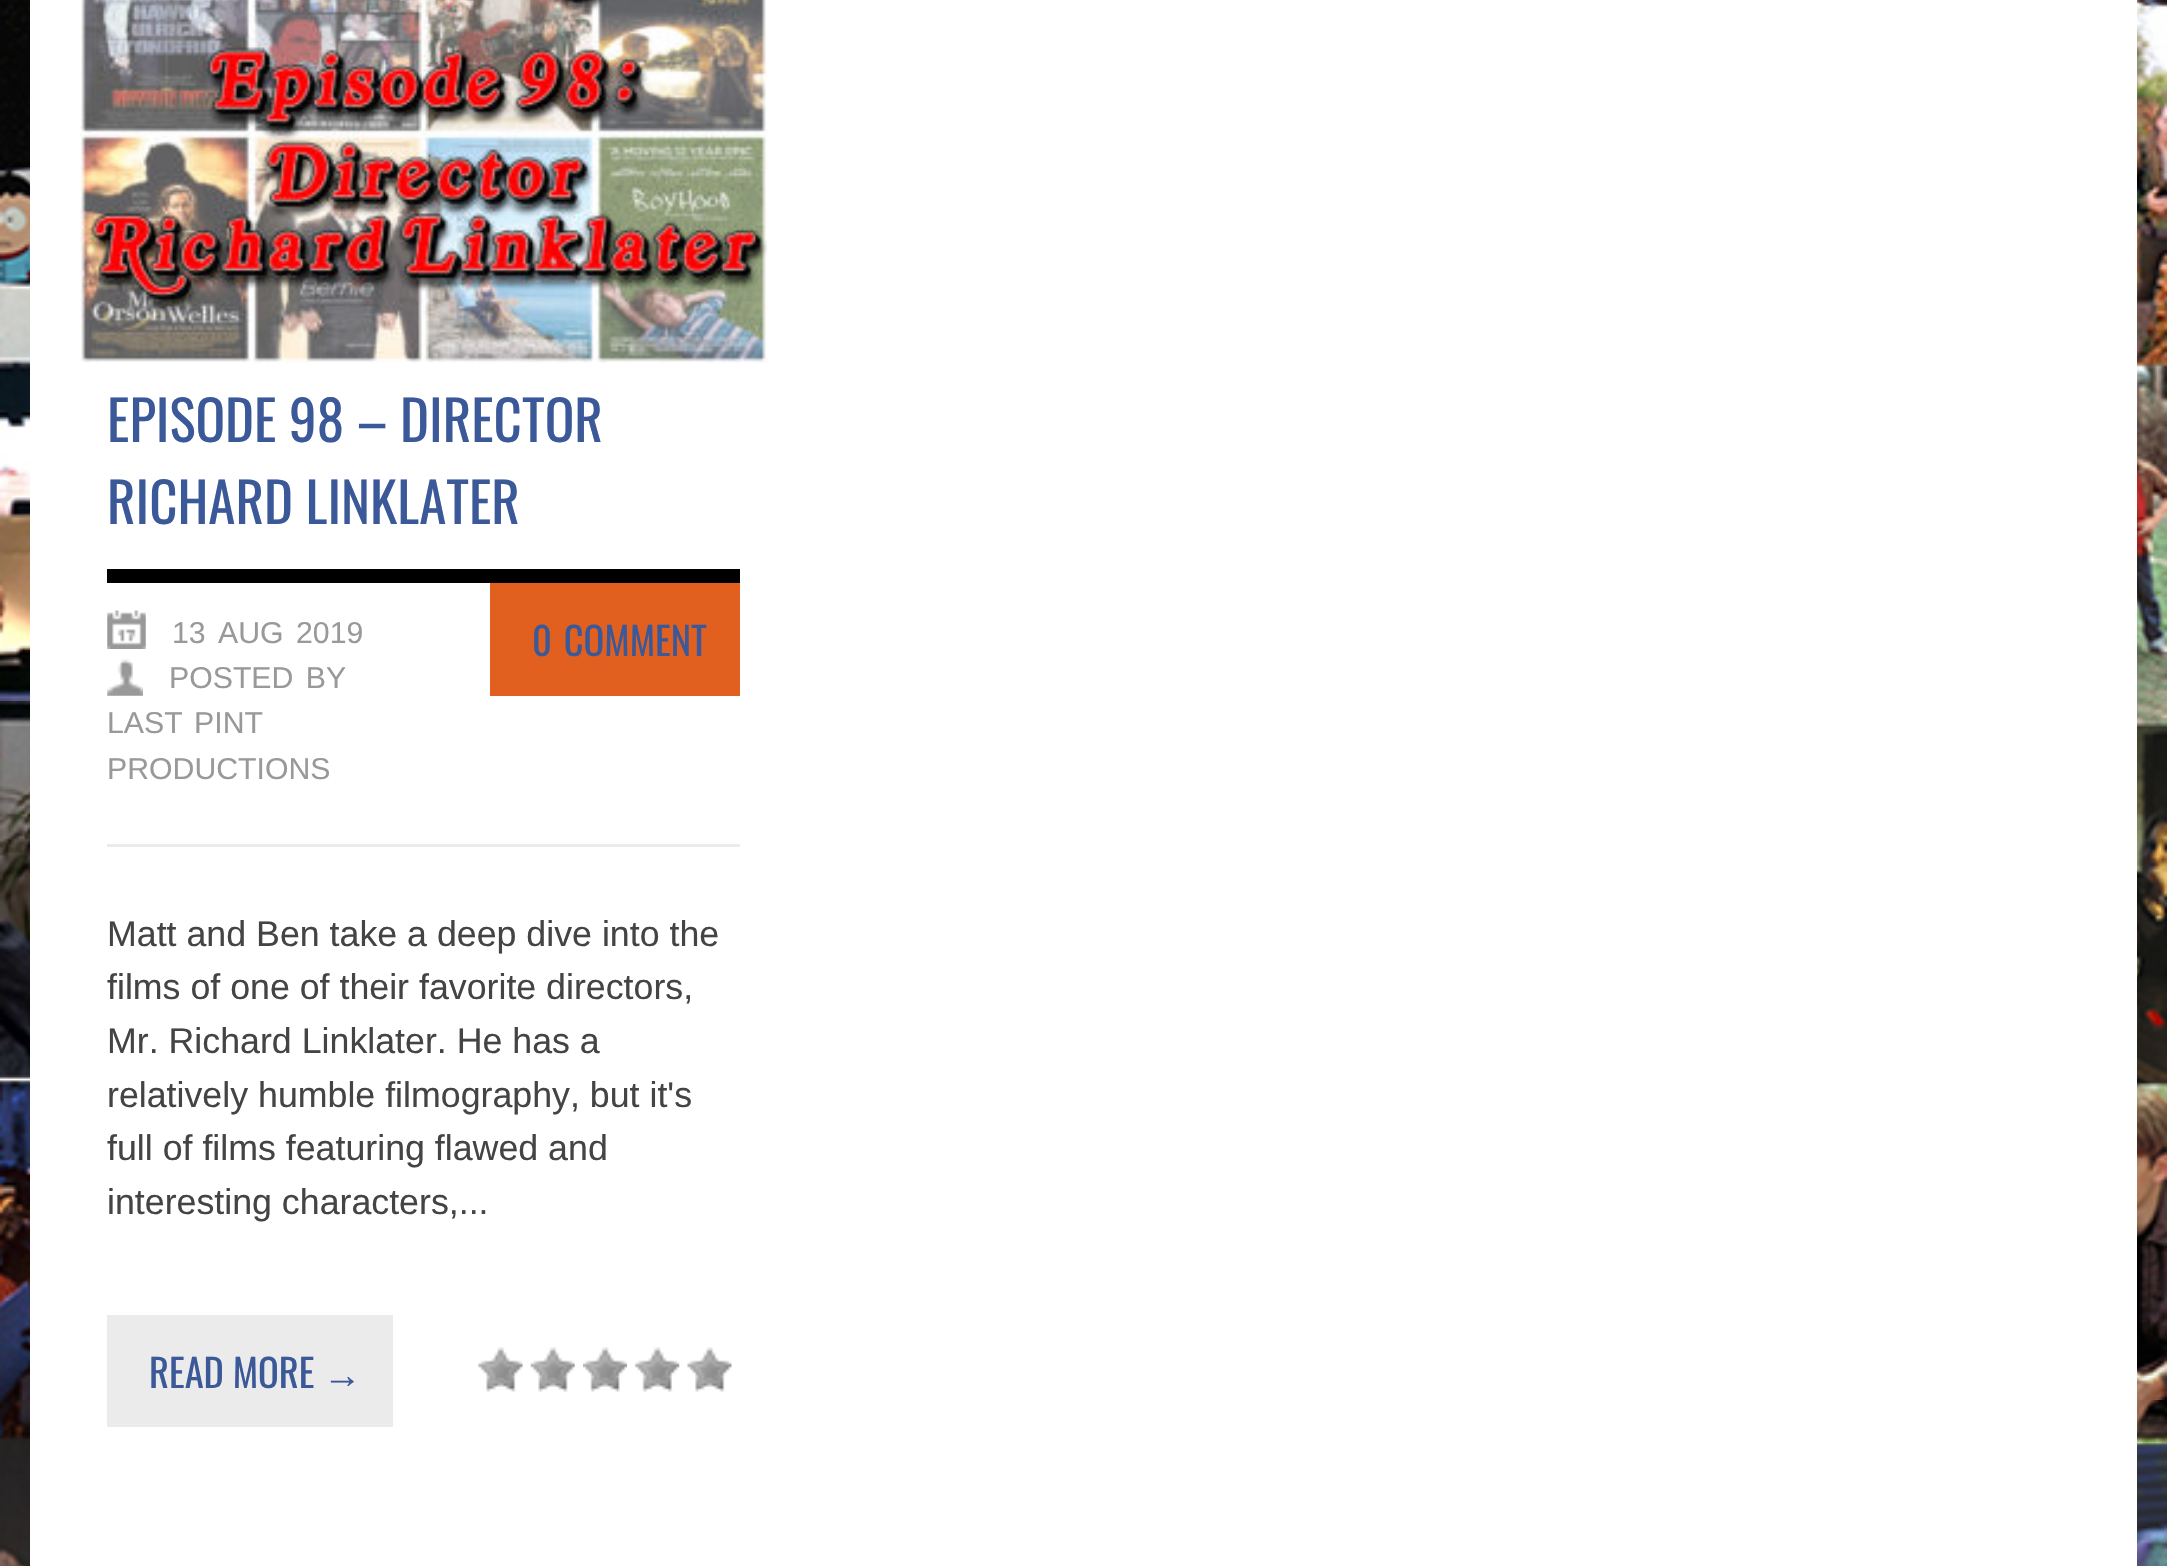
static SkFont makeFont(const char* family, int weight, float size, bool italic = false) {
  SkFontStyle style(weight, SkFontStyle::kNormal_Width,
    italic ? SkFontStyle::kItalic_Slant : SkFontStyle::kUpright_Slant);
  SkFont result(fontMgr->matchFamilyStyle(family, style), size);
  result.setSubpixel(true);
  return result;
}

static void text(SkCanvas* c, const char* s, float x, float y, const SkFont& font, SkColor color) {
  SkPaint ink(SkColor4f::FromColor(color));
  ink.setAntiAlias(true);
  c->drawString(s, x, y, font, ink);
}

static void spacedText(SkCanvas* c, const char* s, float x, float y, const SkFont& font, const SkPaint& ink, float letter, float word) {
  std::vector<SkGlyphID> glyphs(font.countText(s, strlen(s), SkTextEncoding::kUTF8));
  std::vector<float> xs(glyphs.size());
  font.textToGlyphs(s, strlen(s), SkTextEncoding::kUTF8, glyphs);
  font.getXPos(glyphs, xs, x);
  float extra = 0;
  for (size_t i = 0; i < glyphs.size(); i++) {
    xs[i] += extra;
    extra += letter + word * (glyphs[i] == font.unicharToGlyph(' '));
  }
  c->drawTextBlob(SkTextBlob::MakeFromPosHGlyphs(glyphs, xs, y, font), 0, 0, ink);
}

static void box(SkCanvas* c, float l, float t, float r, float b, SkColor color) {
  SkPaint ink(SkColor4f::FromColor(color));
  ink.setAntiAlias(true);
  c->drawRect(SkRect::MakeLTRB(l, t, r, b), ink);
}

static void picture(SkCanvas* c, const char* path, float l, float t, float r, float b) {
  auto image = SkImages::DeferredFromEncodedData(SkData::MakeFromFileName(path));
  c->drawImageRect(image, SkRect::MakeLTRB(l, t, r, b), SkSamplingOptions());
}

void draw(SkCanvas* c) {
  SkPaint paint;
  paint.setAntiAlias(true);
  c->clear(0xffffffff);
  picture(c, "img_01.png", 0, 0, 2167, 1566);
  box(c, 30, 0, 2137, 1566, 0xffffffff);
  picture(c, "img_02.png", 80, 0, 768, 363);
  box(c, 107, 569, 740, 583, 0xff000000);
  SkFont face1 = makeFont("Oswald", 400, 55);
  text(c, "EPISODE 98 – DIRECTOR", 107, 442, face1, 0xff3b5998);
  text(c, "RICHARD LINKLATER", 107, 524, face1, 0xff3b5998);
  picture(c, "img_03.png", 107, 610, 146, 649);
  SkFont face2 = makeFont("Liberation Sans", 400, 30.25f);
  paint.setColor(0xff999999);
  spacedText(c, "13 AUG 2019", 172, 643, face2, paint, 0, 4);
  picture(c, "img_04.png", 107, 659, 143, 696);
  spacedText(c, "POSTED BY", 169, 688, face2, paint, 0, 4);
  spacedText(c, "LAST PINT", 107, 733, face2, paint, 0, 3);
  text(c, "PRODUCTIONS", 107, 779, face2, 0xff999999);
  box(c, 490, 583, 740, 696, 0xffe16020);
  SkFont face3 = makeFont("Oswald", 400, 38.5f);
  paint.setColor(0xff3b5998);
  spacedText(c, "0 COMMENT", 532, 656, face3, paint, 0, 3);
  box(c, 107, 844, 740, 847, 0xffebebeb);
  SkFont face4 = makeFont("Liberation Sans", 400, 35.75f);
  text(c, "Matt and Ben take a deep dive into the", 107, 946, face4, 0xff444444);
  text(c, "films of one of their favorite directors,", 107, 999, face4, 0xff444444);
  text(c, "Mr. Richard Linklater. He has a", 107, 1053, face4, 0xff444444);
  text(c, "relatively humble filmography, but it's", 107, 1107, face4, 0xff444444);
  text(c, "full of films featuring flawed and", 107, 1160, face4, 0xff444444);
  text(c, "interesting characters,...", 107, 1214, face4, 0xff444444);
  box(c, 107, 1315, 393, 1427, 0xffebebeb);
  text(c, "READ MORE", 149, 1388, face3, 0xff3b5998);
  SkFont face5 = makeFont("Liberation Serif", 400, 38.5f);
  text(c, "→", 323, 1388, face5, 0xff3b5998);
  picture(c, "img_05.png", 478, 1347, 523, 1392);
  picture(c, "img_06.png", 530, 1347, 575, 1392);
  picture(c, "img_07.png", 583, 1347, 627, 1392);
  picture(c, "img_08.png", 635, 1347, 680, 1392);
  picture(c, "img_09.png", 687, 1347, 732, 1392);
}
